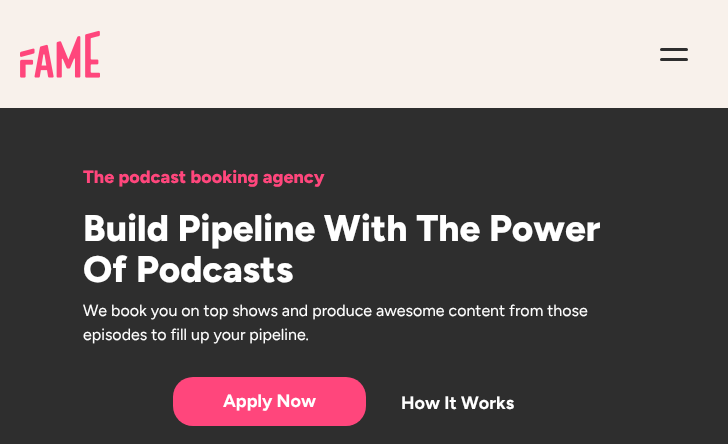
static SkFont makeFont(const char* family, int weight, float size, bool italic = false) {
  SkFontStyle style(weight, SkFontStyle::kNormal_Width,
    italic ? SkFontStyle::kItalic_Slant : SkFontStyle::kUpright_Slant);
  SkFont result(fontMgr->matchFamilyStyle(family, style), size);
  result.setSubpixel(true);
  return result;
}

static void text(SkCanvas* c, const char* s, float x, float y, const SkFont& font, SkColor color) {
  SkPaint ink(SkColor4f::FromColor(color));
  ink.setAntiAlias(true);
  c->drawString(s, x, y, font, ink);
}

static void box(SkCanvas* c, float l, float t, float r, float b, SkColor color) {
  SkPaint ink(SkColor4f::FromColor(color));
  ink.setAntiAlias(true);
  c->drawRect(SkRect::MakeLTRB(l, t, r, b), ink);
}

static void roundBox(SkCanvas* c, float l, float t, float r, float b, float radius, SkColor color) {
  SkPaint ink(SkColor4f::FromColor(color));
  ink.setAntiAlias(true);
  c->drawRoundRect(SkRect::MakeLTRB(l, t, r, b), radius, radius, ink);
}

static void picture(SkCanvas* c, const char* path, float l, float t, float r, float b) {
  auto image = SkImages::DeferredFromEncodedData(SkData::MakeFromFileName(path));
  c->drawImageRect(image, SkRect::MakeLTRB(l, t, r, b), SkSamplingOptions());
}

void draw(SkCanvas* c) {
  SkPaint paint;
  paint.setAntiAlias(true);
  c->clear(0xff2e2e2e);
  box(c, 0, 0, 728, 108, 0xfff8f1eb);
  picture(c, "img_01.png", 20, 30, 100, 78);
  roundBox(c, 660, 48, 688, 51, 1.5f, 0xff2e2e2e);
  roundBox(c, 660, 58, 688, 61, 1.5f, 0xff2e2e2e);
  SkFont face1 = makeFont("Figtree", 800, 18);
  text(c, "The podcast booking agency", 83, 183, face1, 0xffff467c);
  SkFont face2 = makeFont("Figtree", 800, 37);
  text(c, "Build Pipeline With The Power", 83, 241, face2, 0xffffffff);
  text(c, "Of Podcasts", 83, 282, face2, 0xffffffff);
  SkFont face3 = makeFont("Figtree", 400, 16);
  text(c, "We book you on top shows and produce awesome content from those", 83, 316, face3, 0xffffffff);
  text(c, "episodes to fill up your pipeline.", 83, 340, face3, 0xffffffff);
  roundBox(c, 173, 377, 366, 426, 20, 0xffff467c);
  SkFont face4 = makeFont("Figtree", 700, 18);
  text(c, "Apply Now", 223, 407, face4, 0xffffffff);
  text(c, "How It Works", 401, 409, face4, 0xffffffff);
}
